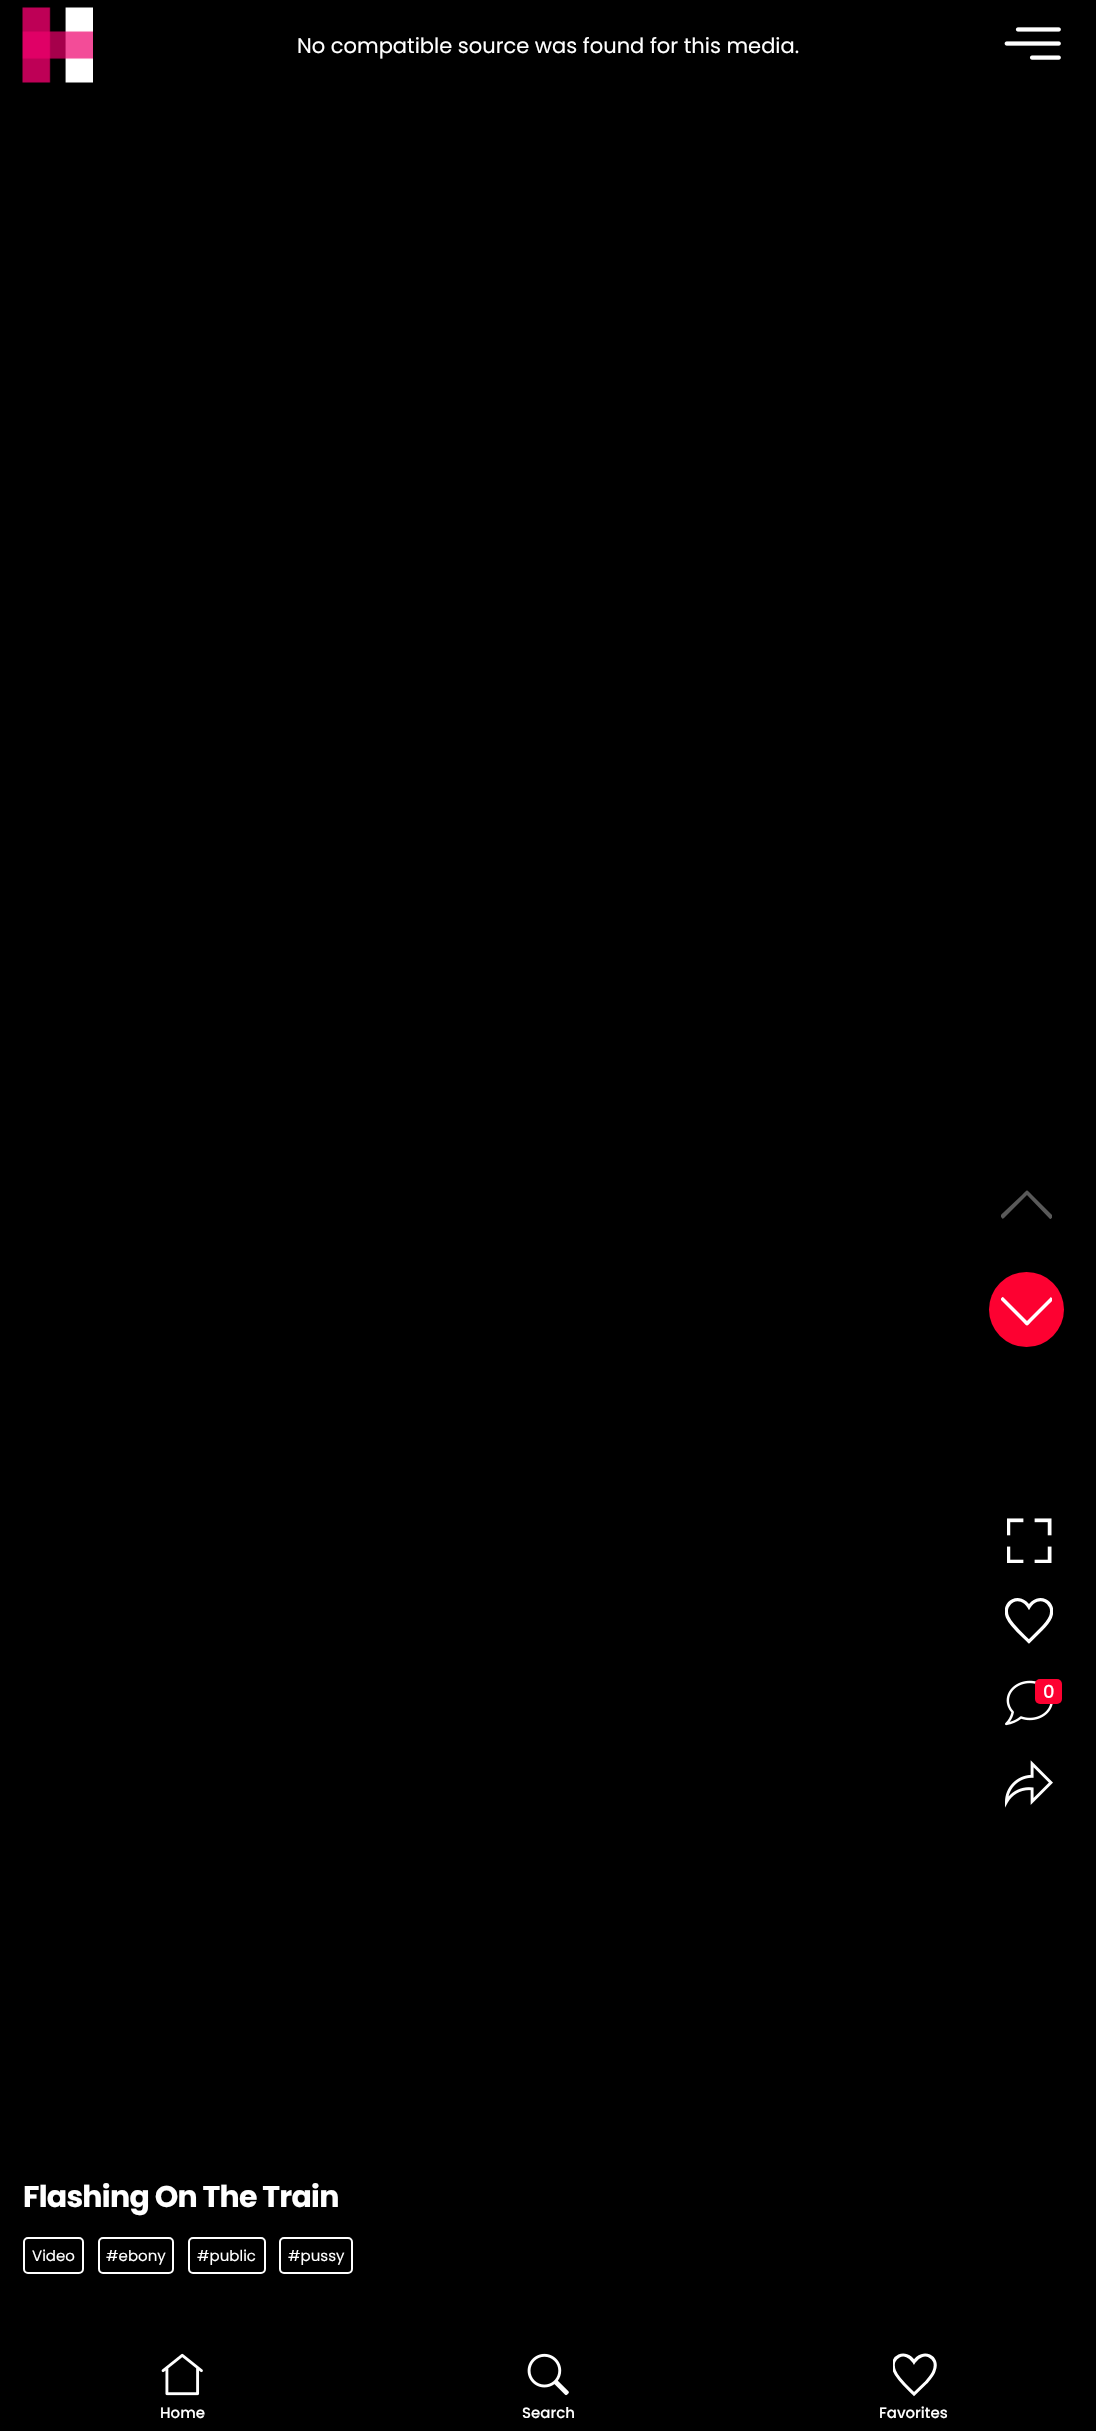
static SkFont makeFont(const char* family, int weight, float size, bool italic = false) {
  SkFontStyle style(weight, SkFontStyle::kNormal_Width,
    italic ? SkFontStyle::kItalic_Slant : SkFontStyle::kUpright_Slant);
  SkFont result(fontMgr->matchFamilyStyle(family, style), size);
  result.setSubpixel(true);
  return result;
}

static void text(SkCanvas* c, const char* s, float x, float y, const SkFont& font, SkColor color) {
  SkPaint ink(SkColor4f::FromColor(color));
  ink.setAntiAlias(true);
  c->drawString(s, x, y, font, ink);
}

static void spacedText(SkCanvas* c, const char* s, float x, float y, const SkFont& font, const SkPaint& ink, float letter, float word) {
  std::vector<SkGlyphID> glyphs(font.countText(s, strlen(s), SkTextEncoding::kUTF8));
  std::vector<float> xs(glyphs.size());
  font.textToGlyphs(s, strlen(s), SkTextEncoding::kUTF8, glyphs);
  font.getXPos(glyphs, xs, x);
  float extra = 0;
  for (size_t i = 0; i < glyphs.size(); i++) {
    xs[i] += extra;
    extra += letter + word * (glyphs[i] == font.unicharToGlyph(' '));
  }
  c->drawTextBlob(SkTextBlob::MakeFromPosHGlyphs(glyphs, xs, y, font), 0, 0, ink);
}

static void roundBox(SkCanvas* c, float l, float t, float r, float b, float radius, SkColor color) {
  SkPaint ink(SkColor4f::FromColor(color));
  ink.setAntiAlias(true);
  c->drawRoundRect(SkRect::MakeLTRB(l, t, r, b), radius, radius, ink);
}

static void picture(SkCanvas* c, const char* path, float l, float t, float r, float b) {
  auto image = SkImages::DeferredFromEncodedData(SkData::MakeFromFileName(path));
  c->drawImageRect(image, SkRect::MakeLTRB(l, t, r, b), SkSamplingOptions());
}

void draw(SkCanvas* c) {
  SkPaint paint;
  paint.setAntiAlias(true);
  c->clear(0xff000000);
  picture(c, "img_01.png", 22, 7, 93, 83);
  picture(c, "img_02.png", 1004, 27, 1061, 60);
  SkFont face1 = makeFont("Poppins", 400, 21);
  text(c, "No compatible source was found for this media.", 297, 53, face1, 0xffffffff);
  picture(c, "img_03.png", 1007, 1518, 1052, 1563);
  c->save();
  c->clipRect(SkRect::MakeLTRB(1005, 1596, 1053, 1644));
  paint.setStyle(SkPaint::kStroke_Style);
  paint.setStrokeWidth(3.3f);
  paint.setColor(0xffffffff);
  c->drawPath(SkPathBuilder().moveTo(1041.5f, 1629).lineTo(1029, 1641.5f).cubicTo(1022.5f, 1635, 1011, 1625.5f, 1007.5f, 1617).cubicTo(1001.5f, 1601.5f, 1020.5f, 1592.5f, 1029, 1607).cubicTo(1037.5f, 1592.5f, 1056.5f, 1601.5f, 1050.5f, 1617).cubicTo(1048.5f, 1621.5f, 1045, 1625.5f, 1041.5f, 1629).close().detach(), paint);
  c->restore();
  picture(c, "img_04.png", 1005, 1680, 1053, 1726);
  roundBox(c, 1035, 1679, 1062, 1704, 5, 0xfffd0131);
  SkFont face2 = makeFont("Poppins", 500, 18);
  text(c, "0", 1043, 1698, face2, 0xffffffff);
  picture(c, "img_05.png", 1005, 1760, 1053, 1808);
  SkFont face3 = makeFont("Poppins", 700, 30);
  paint.setStyle(SkPaint::kFill_Style);
  spacedText(c, "Flashing On The Train", 23, 2207, face3, paint, -0.75f, 0);
  paint.setStyle(SkPaint::kStroke_Style);
  paint.setStrokeWidth(2);
  c->drawRoundRect(SkRect::MakeLTRB(24, 2238, 83, 2273), 4, 4, paint);
  SkFont face4 = makeFont("Poppins", 400, 15);
  text(c, "Video", 32, 2261, face4, 0xffffffff);
  c->drawRoundRect(SkRect::MakeLTRB(99, 2238, 173, 2273), 4, 4, paint);
  text(c, "#ebony", 106, 2261, face4, 0xffffffff);
  c->drawRoundRect(SkRect::MakeLTRB(189, 2238, 265, 2273), 4, 4, paint);
  text(c, "#public", 197, 2261, face4, 0xffffffff);
  c->drawRoundRect(SkRect::MakeLTRB(280, 2238, 352, 2273), 4, 4, paint);
  text(c, "#pussy", 288, 2261, face4, 0xffffffff);
  c->save();
  c->clipRect(SkRect::MakeLTRB(1001, 1175, 1052, 1235));
  paint.setStyle(SkPaint::kFill_Style);
  paint.setColor(0xff595959);
  c->drawPath(SkPathBuilder().moveTo(1001, 1217).lineTo(1002, 1218).cubicTo(1002, 1219, 1003, 1219, 1004, 1218).lineTo(1027, 1195).lineTo(1050, 1219).cubicTo(1051, 1219, 1053, 1217, 1053, 1216).lineTo(1032, 1195).cubicTo(1026, 1189, 1028, 1189, 1022, 1195).lineTo(1005, 1211).cubicTo(1003, 1213, 999, 1216, 1001, 1217).close().detach(), paint);
  c->restore();
  paint.setColor(0xfffd0131);
  c->drawCircle(1026.5f, 1309.5f, 37.5f, paint);
  c->save();
  c->clipRect(SkRect::MakeLTRB(1001, 1280, 1052, 1340));
  paint.setColor(0xffffffff);
  c->drawPath(SkPathBuilder().moveTo(1052, 1299).lineTo(1052, 1298).cubicTo(1051, 1297, 1050, 1297, 1050, 1298).lineTo(1027, 1321).lineTo(1003, 1297).cubicTo(1002, 1297, 1000, 1299, 1001, 1300).lineTo(1022, 1321).cubicTo(1028, 1327, 1026, 1327, 1032, 1321).lineTo(1048, 1305).cubicTo(1050, 1303, 1054, 1300, 1052, 1299).close().detach(), paint);
  c->restore();
  picture(c, "img_06.png", 161, 2353, 203, 2396);
  SkFont face5 = makeFont("Poppins", 500, 15);
  text(c, "Home", 160, 2418, face5, 0xffffffff);
  picture(c, "img_07.png", 527, 2353, 569, 2396);
  text(c, "Search", 522, 2418, face5, 0xffffffff);
  c->save();
  c->clipRect(SkRect::MakeLTRB(893, 2352, 938, 2397));
  paint.setStyle(SkPaint::kStroke_Style);
  paint.setStrokeWidth(3.1f);
  c->drawPath(SkPathBuilder().moveTo(926, 2382.5f).lineTo(914, 2394).cubicTo(908, 2388, 897.5f, 2379, 894.5f, 2371).cubicTo(888.5f, 2356.5f, 906, 2348.5f, 914, 2362).cubicTo(922.5f, 2348.5f, 940, 2356.5f, 934, 2371).cubicTo(932.5f, 2375.5f, 929, 2379, 926, 2382.5f).close().detach(), paint);
  c->restore();
  text(c, "Favorites", 879, 2418, face5, 0xffffffff);
}
